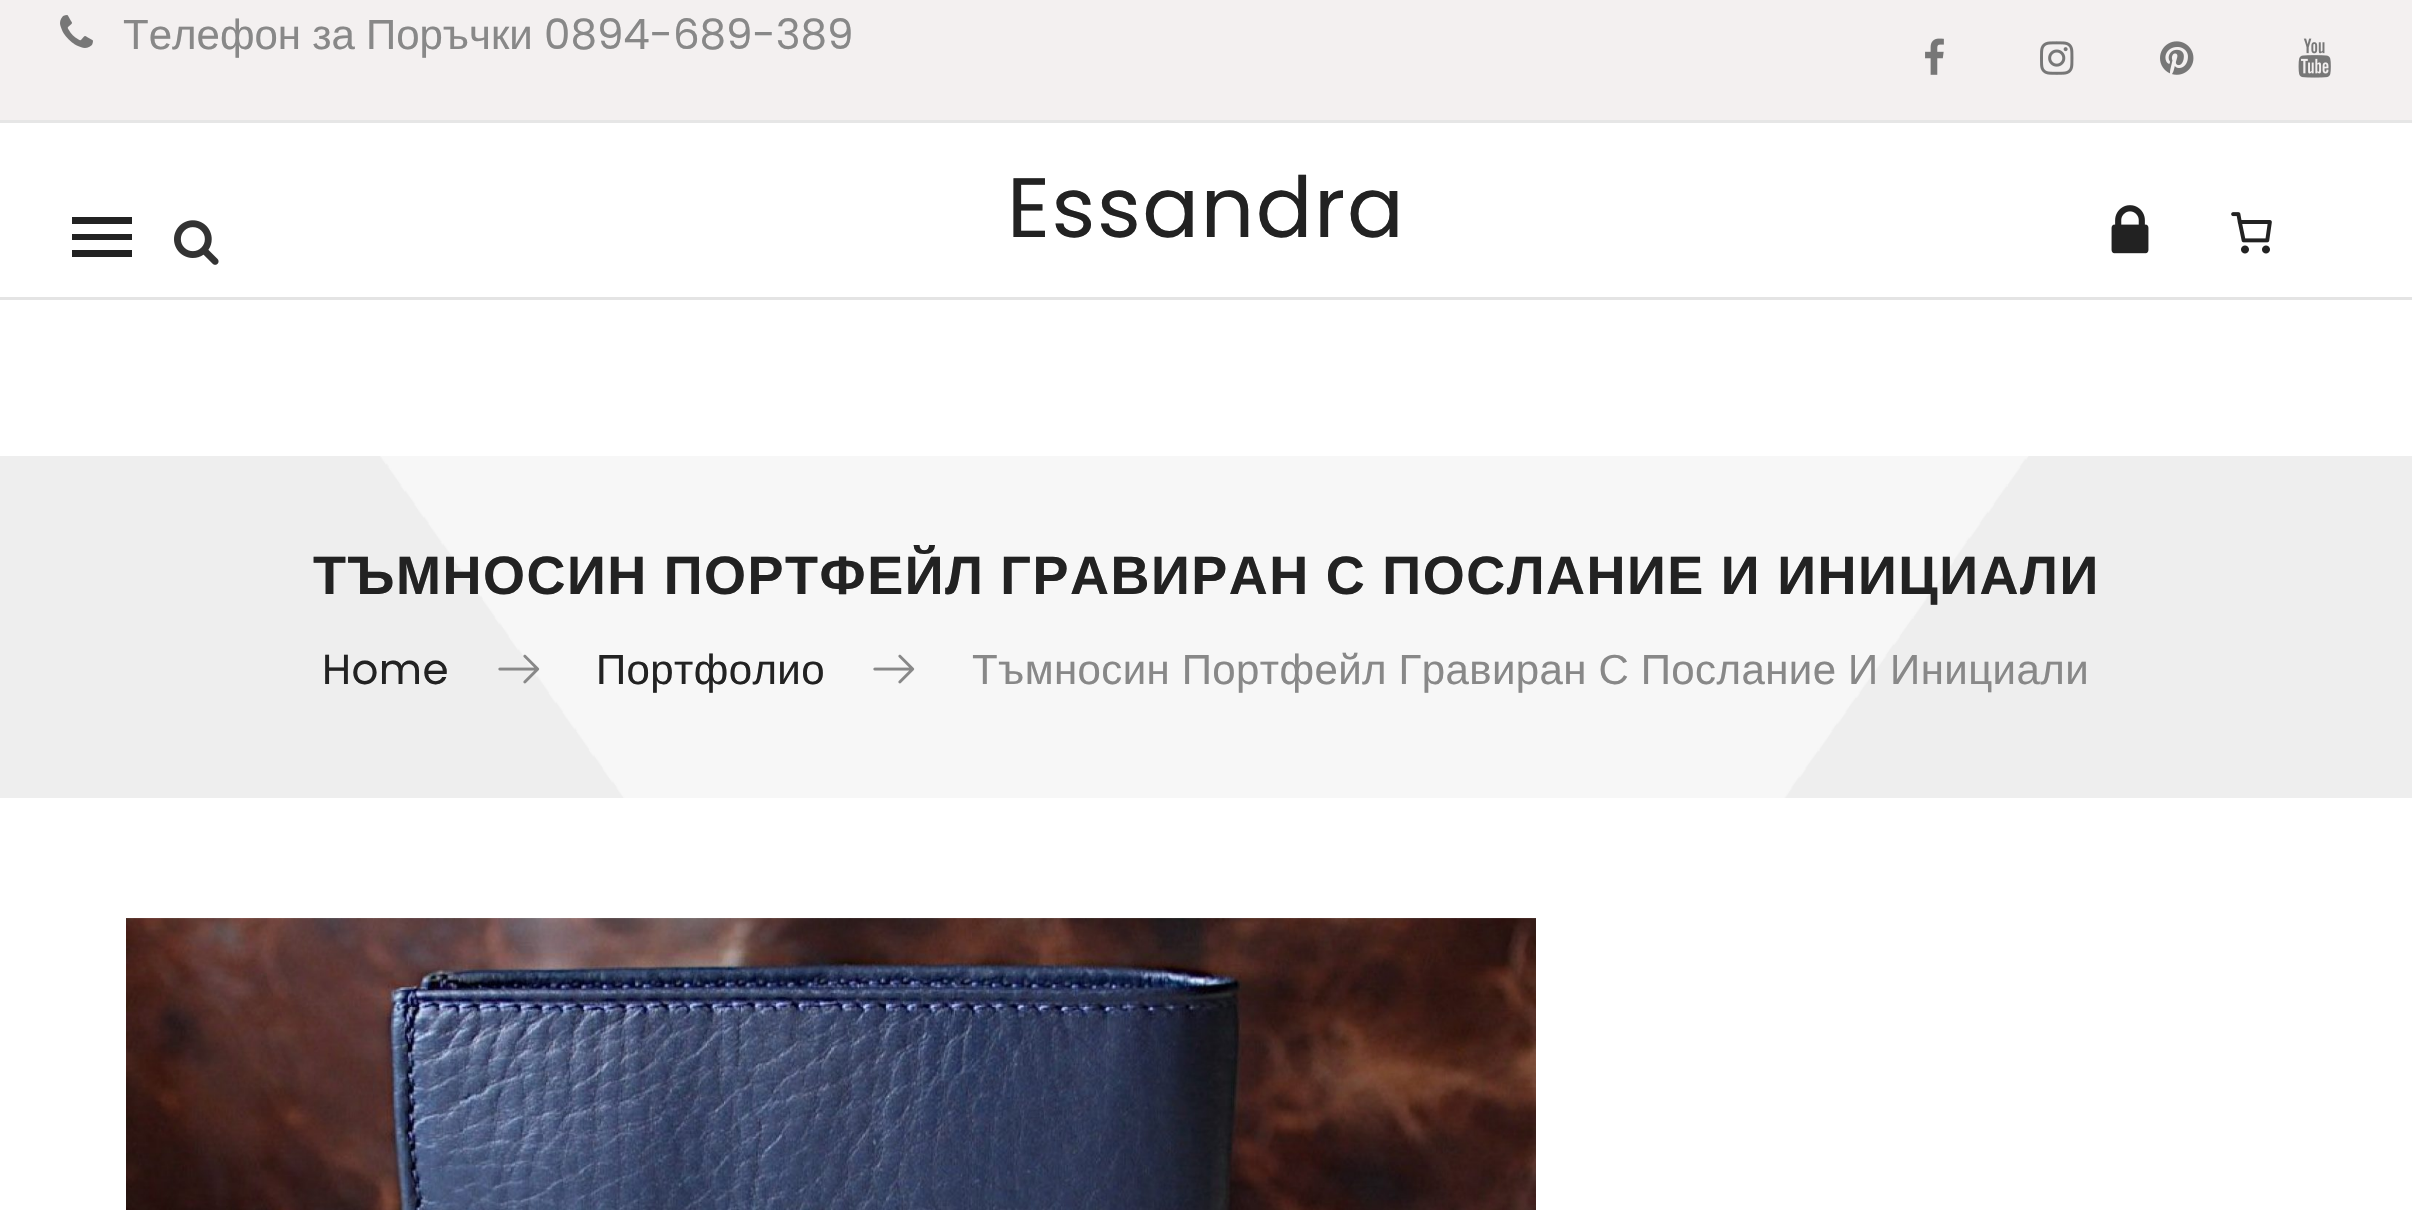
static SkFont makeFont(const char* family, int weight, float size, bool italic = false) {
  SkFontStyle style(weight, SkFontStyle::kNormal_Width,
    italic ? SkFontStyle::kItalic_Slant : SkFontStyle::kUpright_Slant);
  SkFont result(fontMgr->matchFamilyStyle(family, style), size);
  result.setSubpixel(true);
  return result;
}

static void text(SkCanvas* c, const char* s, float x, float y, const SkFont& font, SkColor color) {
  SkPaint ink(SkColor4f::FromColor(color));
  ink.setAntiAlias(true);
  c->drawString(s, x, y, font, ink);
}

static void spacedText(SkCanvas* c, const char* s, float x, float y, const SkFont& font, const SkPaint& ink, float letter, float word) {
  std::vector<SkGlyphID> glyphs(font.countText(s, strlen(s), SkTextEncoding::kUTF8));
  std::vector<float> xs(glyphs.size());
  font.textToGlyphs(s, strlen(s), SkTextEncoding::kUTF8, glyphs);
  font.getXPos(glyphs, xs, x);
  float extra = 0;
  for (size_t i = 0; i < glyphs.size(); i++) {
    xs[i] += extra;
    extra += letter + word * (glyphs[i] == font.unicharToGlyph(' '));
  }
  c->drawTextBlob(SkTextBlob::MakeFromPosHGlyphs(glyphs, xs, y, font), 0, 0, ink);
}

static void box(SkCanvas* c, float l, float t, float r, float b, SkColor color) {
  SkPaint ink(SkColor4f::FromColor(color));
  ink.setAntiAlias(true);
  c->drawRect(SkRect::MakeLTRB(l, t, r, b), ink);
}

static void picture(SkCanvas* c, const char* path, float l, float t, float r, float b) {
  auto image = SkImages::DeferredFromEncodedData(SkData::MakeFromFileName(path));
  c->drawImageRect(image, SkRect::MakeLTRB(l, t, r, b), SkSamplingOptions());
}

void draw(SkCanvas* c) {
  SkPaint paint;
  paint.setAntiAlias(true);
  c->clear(0xffffffff);
  box(c, 0, 0, 2412, 120, 0xfff3f0f0);
  box(c, 0, 120, 2412, 123, 0xffe6e6e6);
  picture(c, "img_01.png", 60, 15, 93, 48);
  SkFont face1 = makeFont("Liberation Sans", 400, 42);
  paint.setColor(0xff888888);
  spacedText(c, "Телефон за Поръчки", 123, 49, face1, paint, 0, -0.5f);
  SkFont face2 = makeFont("Poppins", 400, 42);
  text(c, "0894-689-389", 544, 49, face2, 0xff888888);
  picture(c, "img_02.png", 1925, 38, 1944, 75);
  picture(c, "img_03.png", 2040, 41, 2074, 75);
  picture(c, "img_04.png", 2160, 41, 2194, 75);
  picture(c, "img_05.png", 2298, 38, 2331, 78);
  box(c, 0, 297, 2412, 300, 0xffe4e4e4);
  paint.setColor(0xff222222);
  c->drawPath(SkPathBuilder().moveTo(72, 257).lineTo(132, 257).lineTo(132, 250).lineTo(72, 250).close().moveTo(72, 240).lineTo(132, 240).lineTo(132, 234).lineTo(72, 234).close().moveTo(72, 217).lineTo(72, 224).lineTo(132, 224).lineTo(132, 217).close().detach(), paint);
  picture(c, "img_06.png", 174, 220, 219, 265);
  SkFont face3 = makeFont("Poppins", 400, 84);
  spacedText(c, "Essandra", 1007, 237, face3, paint, 1.5f, 0);
  picture(c, "img_07.png", 2111, 205, 2149, 254);
  picture(c, "img_08.png", 2231, 212, 2272, 254);
  picture(c, "img_09.png", 0, 456, 2412, 798);
  SkFont face4 = makeFont("Liberation Sans", 700, 54);
  spacedText(c, "ТЪМНОСИН ПОРТФЕЙЛ ГРАВИРАН С ПОСЛАНИЕ И ИНИЦИАЛИ", 313, 594, face4, paint, 1.5f, -0.5f);
  spacedText(c, "Home", 322, 684, face2, paint, 0.4f, 0);
  picture(c, "img_10.png", 498, 654, 540, 684);
  spacedText(c, "Портфолио", 596, 684, face1, paint, 0.4f, 0);
  picture(c, "img_11.png", 873, 654, 915, 684);
  paint.setColor(0xff888888);
  spacedText(c, "Тъмносин Портфейл Гравиран С Послание И Инициали", 972, 684, face1, paint, 0.4f, -0.5f);
  picture(c, "img_12.png", 126, 918, 1536, 1210);
}
